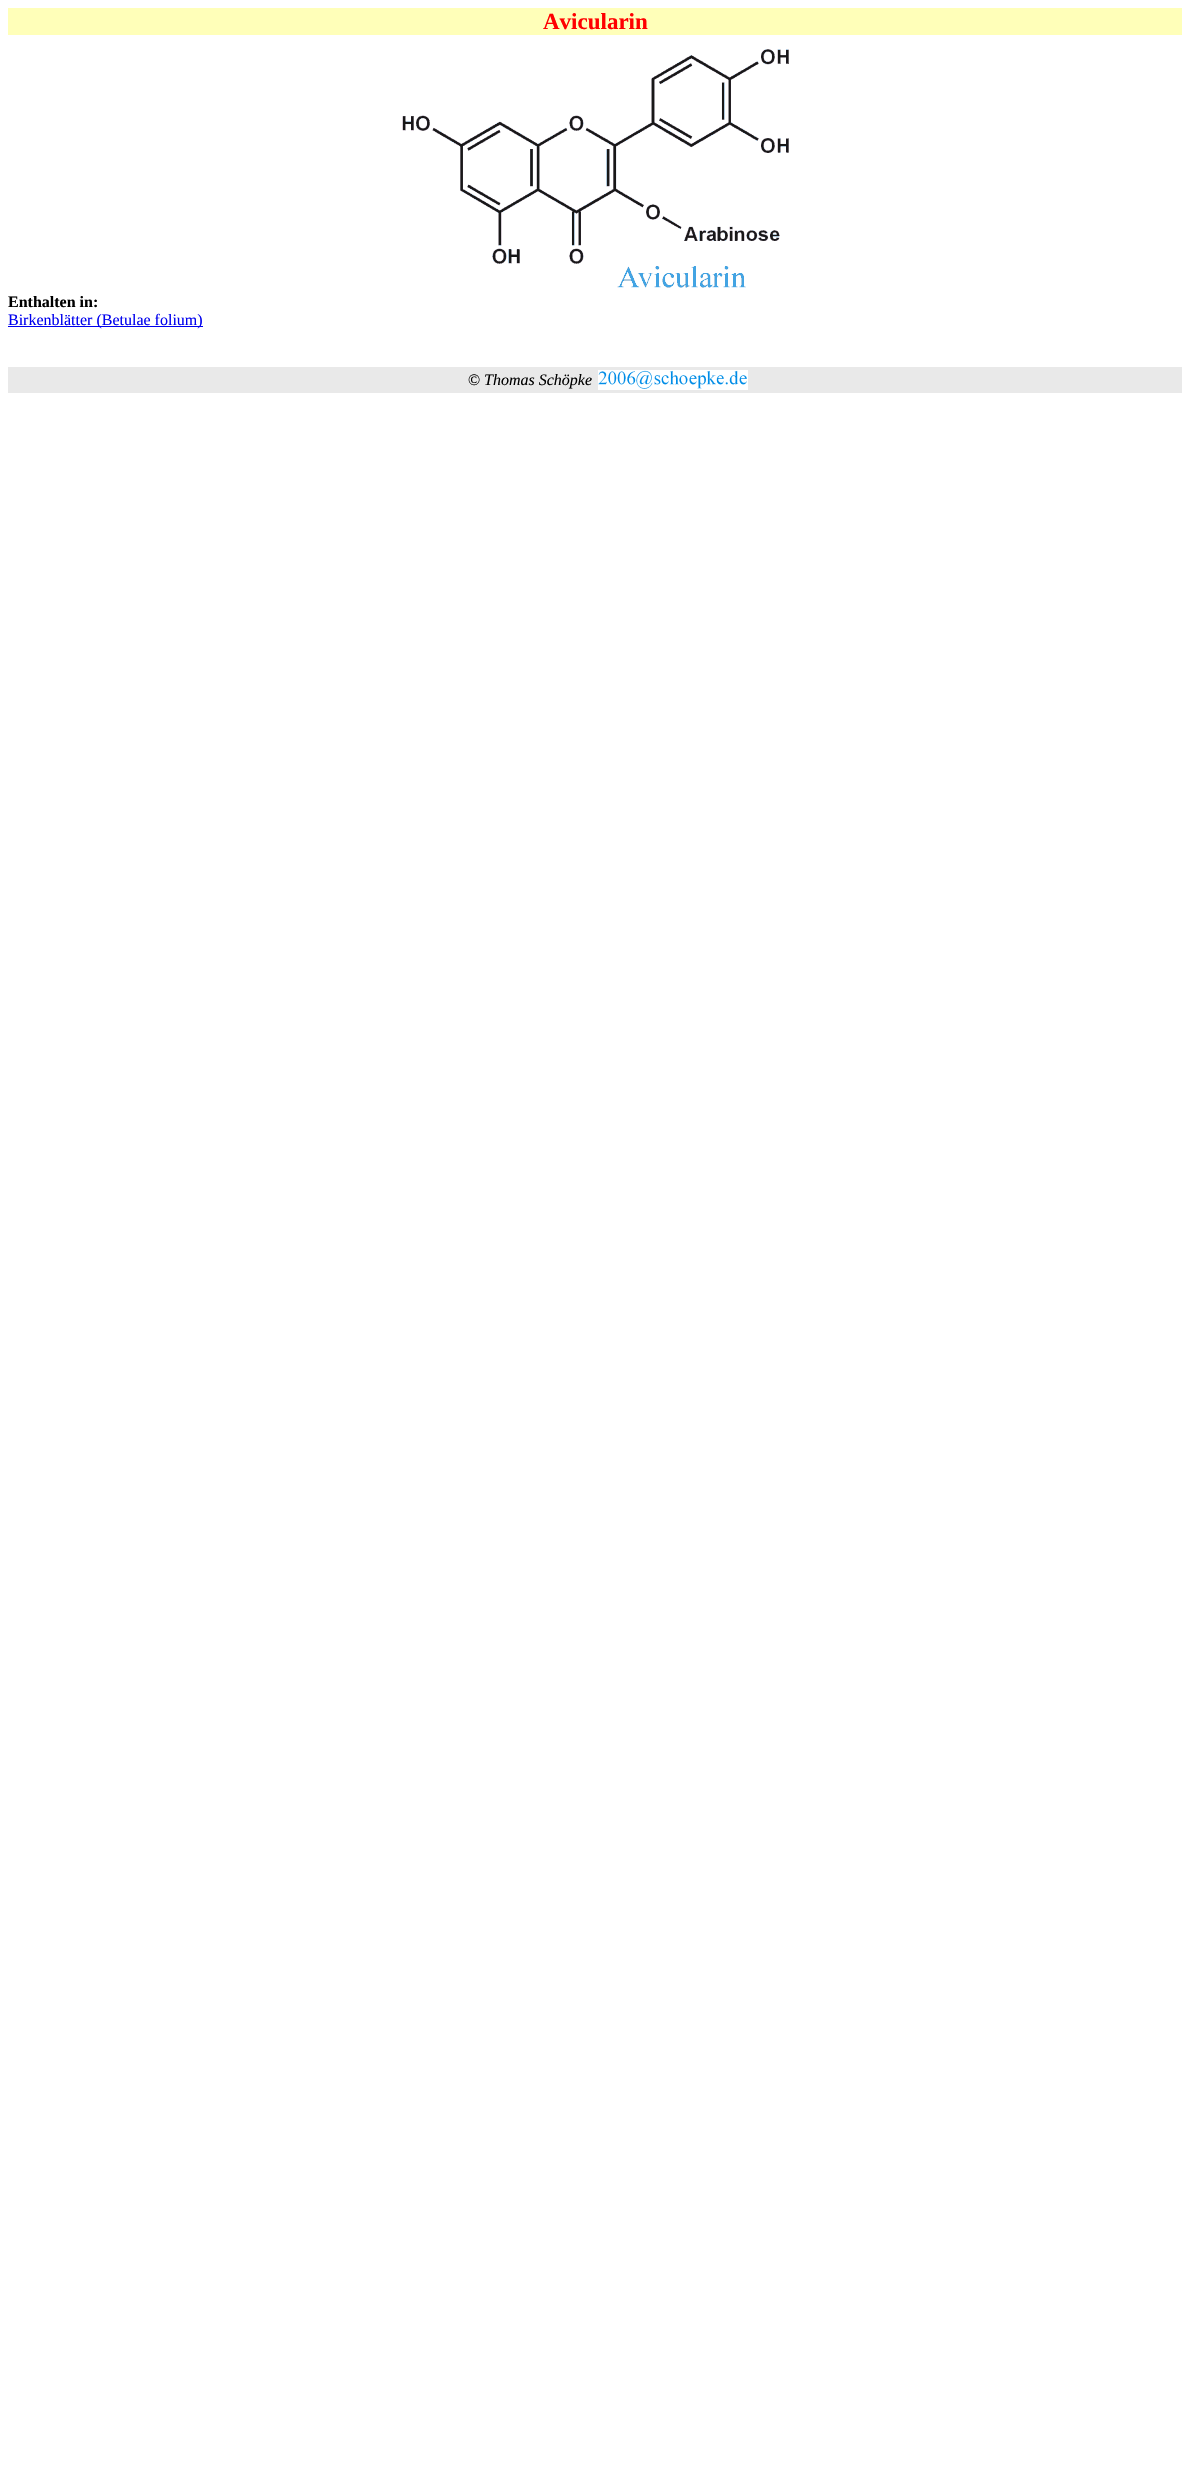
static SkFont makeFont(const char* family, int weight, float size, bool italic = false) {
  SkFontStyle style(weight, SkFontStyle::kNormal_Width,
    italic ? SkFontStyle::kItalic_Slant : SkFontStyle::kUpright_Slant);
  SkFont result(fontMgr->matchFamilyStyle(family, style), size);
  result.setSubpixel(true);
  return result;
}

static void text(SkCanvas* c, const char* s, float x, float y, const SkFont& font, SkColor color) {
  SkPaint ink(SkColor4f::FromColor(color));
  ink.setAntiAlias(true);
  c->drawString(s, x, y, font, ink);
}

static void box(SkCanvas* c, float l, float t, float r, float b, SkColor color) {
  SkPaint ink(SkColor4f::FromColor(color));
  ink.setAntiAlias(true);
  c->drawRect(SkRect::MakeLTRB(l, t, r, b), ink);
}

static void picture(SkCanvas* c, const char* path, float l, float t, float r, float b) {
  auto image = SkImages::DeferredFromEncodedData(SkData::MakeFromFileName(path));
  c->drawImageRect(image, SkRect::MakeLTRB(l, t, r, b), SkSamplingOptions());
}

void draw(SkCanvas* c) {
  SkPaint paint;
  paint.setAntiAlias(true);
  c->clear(0xffffffff);
  box(c, 8, 8, 1182, 35, 0xffffffb9);
  SkFont face1 = makeFont("Liberation Serif", 700, 23);
  text(c, "Avicularin", 543, 29, face1, 0xffff0000);
  picture(c, "img_01.png", 402, 49, 789, 288);
  SkFont face2 = makeFont("Liberation Serif", 700, 16);
  text(c, "Enthalten in:", 8, 307, face2, 0xff000000);
  box(c, 8, 326, 203, 327, 0xff0000ee);
  SkFont face3 = makeFont("Liberation Serif", 400, 16);
  text(c, "Birkenblätter (Betulae folium)", 8, 325, face3, 0xff0000ee);
  box(c, 8, 367, 1182, 393, 0xffe9e9e9);
  text(c, "©", 468, 385, face3, 0xff000000);
  SkFont face4 = makeFont("Liberation Serif", 400, 16, true);
  text(c, "Thomas Schöpke", 484, 385, face4, 0xff000000);
  picture(c, "img_02.png", 598, 370, 748, 390);
}
